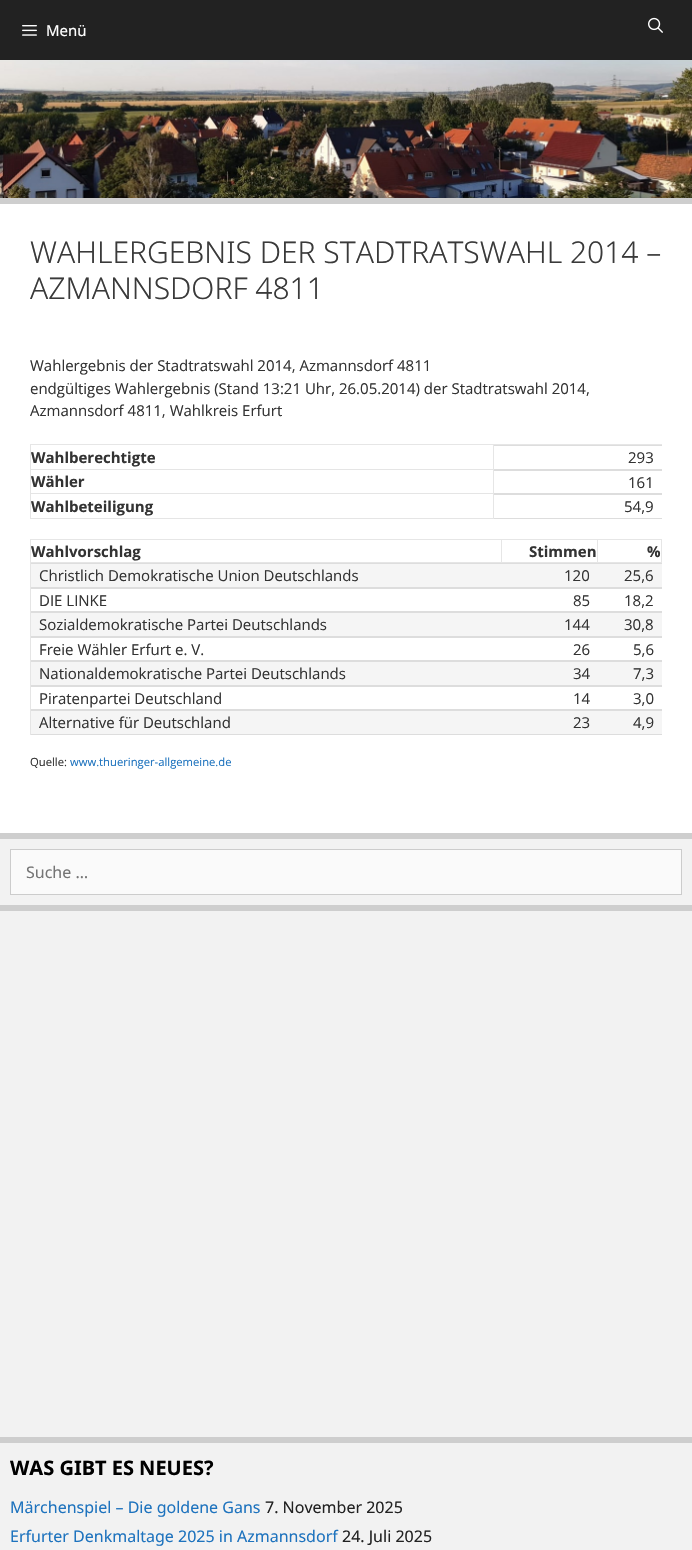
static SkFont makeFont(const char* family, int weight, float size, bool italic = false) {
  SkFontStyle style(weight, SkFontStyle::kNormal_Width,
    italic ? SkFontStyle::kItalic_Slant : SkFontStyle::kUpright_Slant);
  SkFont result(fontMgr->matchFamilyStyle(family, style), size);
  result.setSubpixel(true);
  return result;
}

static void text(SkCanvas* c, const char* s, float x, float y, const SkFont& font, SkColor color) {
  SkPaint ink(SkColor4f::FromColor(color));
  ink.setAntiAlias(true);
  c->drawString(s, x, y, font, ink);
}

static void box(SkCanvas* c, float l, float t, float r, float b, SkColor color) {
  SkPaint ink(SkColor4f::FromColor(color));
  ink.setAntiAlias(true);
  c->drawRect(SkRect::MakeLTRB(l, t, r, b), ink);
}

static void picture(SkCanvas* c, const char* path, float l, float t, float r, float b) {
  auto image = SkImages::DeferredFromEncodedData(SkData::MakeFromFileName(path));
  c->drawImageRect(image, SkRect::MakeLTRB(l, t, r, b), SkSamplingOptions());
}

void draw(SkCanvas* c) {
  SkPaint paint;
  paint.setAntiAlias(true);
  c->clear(0xffcecece);
  box(c, 0, 0, 692, 60, 0xff222222);
  picture(c, "img_01.png", 22, 25, 37, 36);
  SkFont face1 = makeFont("Noto Sans", 400, 15);
  text(c, "Menü", 46, 36, face1, 0xffffffff);
  picture(c, "img_02.png", 648, 17, 663, 33);
  picture(c, "img_03.png", 0, 60, 692, 198);
  box(c, 0, 204, 692, 833, 0xffffffff);
  SkFont face2 = makeFont("Noto Sans", 300, 30);
  text(c, "WAHLERGEBNIS DER STADTRATSWAHL 2014 –", 30, 263, face2, 0xff3a3a3a);
  text(c, "AZMANNSDORF 4811", 30, 299, face2, 0xff3a3a3a);
  SkFont face3 = makeFont("Open Sans", 400, 15);
  text(c, "Wahlergebnis der Stadtratswahl 2014, Azmannsdorf 4811", 30, 371, face3, 0xff333333);
  text(c, "endgültiges Wahlergebnis (Stand 13:21 Uhr, 26.05.2014) der Stadtratswahl 2014,", 30, 394, face3, 0xff333333);
  text(c, "Azmannsdorf 4811, Wahlkreis Erfurt", 30, 416, face3, 0xff333333);
  paint.setColor(0xffe6e6e6);
  c->drawPath(SkPathBuilder().moveTo(30, 444).lineTo(662, 444).lineTo(662, 445).lineTo(31, 445).close().detach(), paint);
  paint.setColor(0x1a000000);
  c->drawPath(SkPathBuilder().moveTo(30, 519).lineTo(30, 444).lineTo(31, 445).lineTo(31, 519).close().detach(), paint);
  paint.setColor(0xffe6e6e6);
  c->drawPath(SkPathBuilder().moveTo(494, 445).lineTo(494, 470).lineTo(493, 469).lineTo(493, 445).close().detach(), paint);
  paint.setColor(0x1a000000);
  c->drawPath(SkPathBuilder().moveTo(494, 470).lineTo(31, 470).lineTo(31, 469).lineTo(493, 469).close().detach(), paint);
  SkFont face4 = makeFont("Open Sans", 700, 15);
  text(c, "Wahlberechtigte", 31, 463, face4, 0xff333333);
  box(c, 494, 445, 662, 446, 0xffdddddd);
  box(c, 494, 469, 662, 471, 0xffdddddd);
  text(c, "293", 628, 463, face3, 0xff333333);
  paint.setColor(0xffe6e6e6);
  c->drawPath(SkPathBuilder().moveTo(494, 470).lineTo(494, 494).lineTo(493, 493).lineTo(493, 470).close().detach(), paint);
  paint.setColor(0x1a000000);
  c->drawPath(SkPathBuilder().moveTo(494, 494).lineTo(31, 494).lineTo(31, 493).lineTo(493, 493).close().detach(), paint);
  text(c, "Wähler", 31, 487, face4, 0xff333333);
  box(c, 494, 493, 662, 495, 0xffdddddd);
  text(c, "161", 628, 488, face3, 0xff333333);
  paint.setColor(0xffe6e6e6);
  c->drawPath(SkPathBuilder().moveTo(494, 494).lineTo(494, 519).lineTo(493, 518).lineTo(493, 494).close().detach(), paint);
  paint.setColor(0x1a000000);
  c->drawPath(SkPathBuilder().moveTo(494, 519).lineTo(31, 519).lineTo(31, 518).lineTo(493, 518).close().detach(), paint);
  text(c, "Wahlbeteiligung", 31, 512, face4, 0xff333333);
  box(c, 494, 518, 662, 519, 0xffdddddd);
  text(c, "54,9", 624, 512, face3, 0xff333333);
  paint.setColor(0xffe6e6e6);
  c->drawPath(SkPathBuilder().moveTo(30, 539).lineTo(662, 539).lineTo(662, 540).lineTo(31, 540).close().detach(), paint);
  paint.setColor(0x1a000000);
  c->drawPath(SkPathBuilder().moveTo(30, 735).lineTo(30, 539).lineTo(31, 540).lineTo(31, 735).close().detach(), paint);
  paint.setColor(0xffe6e6e6);
  c->drawPath(SkPathBuilder().moveTo(502, 540).lineTo(502, 563).lineTo(501, 562).lineTo(501, 540).close().detach(), paint);
  paint.setColor(0x1a000000);
  c->drawPath(SkPathBuilder().moveTo(502, 563).lineTo(31, 563).lineTo(31, 562).lineTo(501, 562).close().detach(), paint);
  text(c, "Wahlvorschlag", 31, 557, face4, 0xff333333);
  paint.setColor(0xffe6e6e6);
  c->drawPath(SkPathBuilder().moveTo(598, 540).lineTo(598, 563).lineTo(597, 562).lineTo(597, 540).close().detach(), paint);
  paint.setColor(0x1a000000);
  c->drawPath(SkPathBuilder().moveTo(598, 563).lineTo(502, 563).lineTo(502, 562).lineTo(597, 562).close().detach(), paint);
  text(c, "Stimmen", 529, 557, face4, 0xff333333);
  paint.setColor(0xffe6e6e6);
  c->drawPath(SkPathBuilder().moveTo(662, 540).lineTo(662, 563).lineTo(661, 562).lineTo(661, 540).close().detach(), paint);
  paint.setColor(0x1a000000);
  c->drawPath(SkPathBuilder().moveTo(662, 563).lineTo(598, 563).lineTo(598, 562).lineTo(661, 562).close().detach(), paint);
  text(c, "%", 647, 557, face4, 0xff333333);
  box(c, 31, 564, 662, 587, 0xfff5f5f5);
  box(c, 31, 563, 662, 564, 0xffdddddd);
  box(c, 31, 587, 662, 588, 0xffdddddd);
  text(c, "Christlich Demokratische Union Deutschlands", 39, 581, face3, 0xff333333);
  text(c, "120", 564, 581, face3, 0xff333333);
  text(c, "25,6", 624, 581, face3, 0xff333333);
  box(c, 31, 588, 662, 589, 0xffdddddd);
  box(c, 31, 611, 662, 612, 0xffdddddd);
  text(c, "DIE LINKE", 39, 606, face3, 0xff333333);
  text(c, "85", 573, 606, face3, 0xff333333);
  text(c, "18,2", 624, 606, face3, 0xff333333);
  box(c, 31, 613, 662, 636, 0xfff5f5f5);
  box(c, 31, 612, 662, 613, 0xffdddddd);
  box(c, 31, 636, 662, 637, 0xffdddddd);
  text(c, "Sozialdemokratische Partei Deutschlands", 39, 630, face3, 0xff333333);
  text(c, "144", 564, 630, face3, 0xff333333);
  text(c, "30,8", 624, 630, face3, 0xff333333);
  box(c, 31, 637, 662, 638, 0xffdddddd);
  box(c, 31, 660, 662, 661, 0xffdddddd);
  text(c, "Freie Wähler Erfurt e. V.", 39, 655, face3, 0xff333333);
  text(c, "26", 573, 655, face3, 0xff333333);
  text(c, "5,6", 633, 655, face3, 0xff333333);
  box(c, 31, 662, 662, 685, 0xfff5f5f5);
  box(c, 31, 661, 662, 662, 0xffdddddd);
  box(c, 31, 685, 662, 686, 0xffdddddd);
  text(c, "Nationaldemokratische Partei Deutschlands", 39, 679, face3, 0xff333333);
  text(c, "34", 573, 679, face3, 0xff333333);
  text(c, "7,3", 633, 679, face3, 0xff333333);
  box(c, 31, 686, 662, 687, 0xffdddddd);
  box(c, 31, 709, 662, 710, 0xffdddddd);
  text(c, "Piratenpartei Deutschland", 39, 704, face3, 0xff333333);
  text(c, "14", 573, 704, face3, 0xff333333);
  text(c, "3,0", 633, 704, face3, 0xff333333);
  box(c, 31, 711, 662, 734, 0xfff5f5f5);
  box(c, 31, 710, 662, 711, 0xffdddddd);
  box(c, 31, 734, 662, 735, 0xffdddddd);
  text(c, "Alternative für Deutschland", 39, 728, face3, 0xff333333);
  text(c, "23", 573, 728, face3, 0xff333333);
  text(c, "4,9", 633, 728, face3, 0xff333333);
  SkFont face5 = makeFont("Open Sans", 400, 11.25f);
  text(c, "Quelle:", 30, 766, face5, 0xff333333);
  text(c, "www.thueringer-allgemeine.de", 70, 766, face5, 0xff1e73be);
  box(c, 0, 839, 692, 905, 0xfff2f2f2);
  paint.setColor(0xfffafafa);
  c->drawRect(SkRect::MakeLTRB(10.5f, 849.5f, 681.5f, 894.5f), paint);
  paint.setStyle(SkPaint::kStroke_Style);
  paint.setStrokeWidth(1);
  paint.setColor(0xffcccccc);
  c->drawRect(SkRect::MakeLTRB(10.5f, 849.5f, 681.5f, 894.5f), paint);
  SkFont face6 = makeFont("Noto Sans", 400, 16);
  text(c, "Suche …", 26, 878, face6, 0xff757575);
  box(c, 0, 911, 692, 1437, 0xfff2f2f2);
  box(c, 0, 1443, 692, 1550, 0xfff2f2f2);
  SkFont face7 = makeFont("Noto Sans", 700, 20);
  text(c, "WAS GIBT ES NEUES?", 10, 1475, face7, 0xff000000);
  text(c, "Märchenspiel – Die goldene Gans", 10, 1513, face6, 0xff1e73be);
  text(c, "7. November 2025", 265, 1513, face6, 0xff222222);
  text(c, "Erfurter Denkmaltage 2025 in Azmannsdorf", 10, 1542, face6, 0xff1e73be);
  text(c, "24. Juli 2025", 342, 1542, face6, 0xff222222);
}
